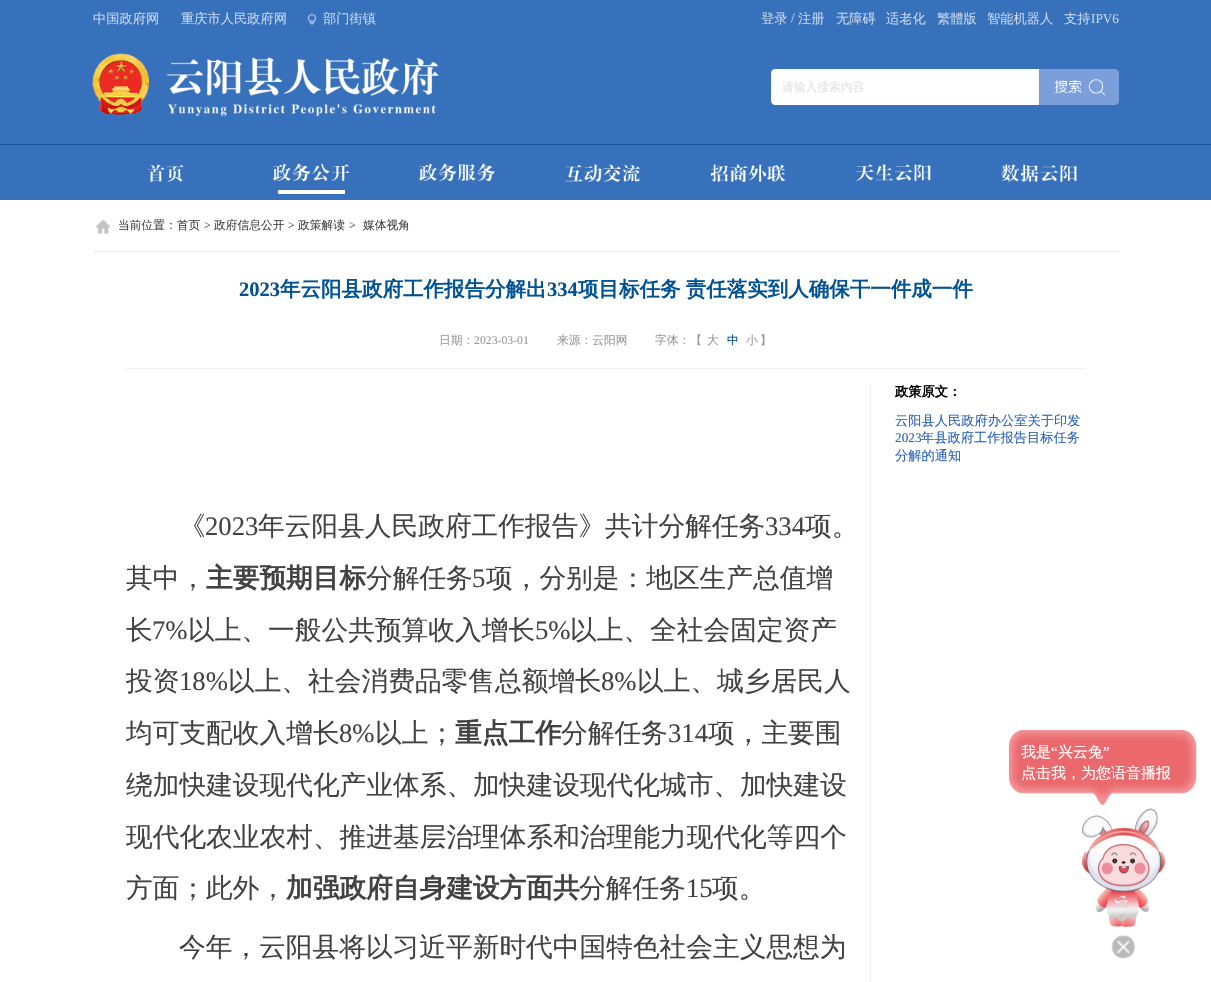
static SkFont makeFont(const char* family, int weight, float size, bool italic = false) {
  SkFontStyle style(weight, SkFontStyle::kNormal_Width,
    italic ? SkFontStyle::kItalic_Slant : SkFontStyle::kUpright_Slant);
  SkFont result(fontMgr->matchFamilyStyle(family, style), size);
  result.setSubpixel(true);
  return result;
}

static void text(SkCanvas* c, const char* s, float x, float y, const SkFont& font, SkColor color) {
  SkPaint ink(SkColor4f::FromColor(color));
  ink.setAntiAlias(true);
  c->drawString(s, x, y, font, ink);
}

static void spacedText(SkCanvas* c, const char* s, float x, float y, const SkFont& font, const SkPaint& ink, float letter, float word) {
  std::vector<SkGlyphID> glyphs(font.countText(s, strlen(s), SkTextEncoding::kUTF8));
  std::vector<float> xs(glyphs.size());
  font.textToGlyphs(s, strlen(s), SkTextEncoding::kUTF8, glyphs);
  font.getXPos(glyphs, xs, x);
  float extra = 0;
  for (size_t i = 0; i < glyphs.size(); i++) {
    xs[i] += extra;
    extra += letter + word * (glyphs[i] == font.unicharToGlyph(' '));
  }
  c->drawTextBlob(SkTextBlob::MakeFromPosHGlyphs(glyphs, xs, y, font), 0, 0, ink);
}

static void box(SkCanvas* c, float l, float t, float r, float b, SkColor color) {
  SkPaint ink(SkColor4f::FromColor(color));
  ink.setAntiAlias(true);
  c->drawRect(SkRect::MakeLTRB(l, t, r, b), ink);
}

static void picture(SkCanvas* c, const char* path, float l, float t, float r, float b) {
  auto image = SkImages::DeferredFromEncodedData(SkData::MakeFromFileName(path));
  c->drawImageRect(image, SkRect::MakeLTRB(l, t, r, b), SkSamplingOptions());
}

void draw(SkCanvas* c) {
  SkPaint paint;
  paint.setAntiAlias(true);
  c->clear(0xffffffff);
  box(c, 0, 0, 1211, 144, 0xff3771bb);
  SkFont face1 = makeFont("WenQuanYi Zen Hei", 500, 13.25f);
  text(c, "中国政府网", 93, 23, face1, 0xffc3d4eb);
  text(c, "重庆市人民政府网", 181, 23, face1, 0xffc3d4eb);
  picture(c, "img_01.png", 307, 13, 317, 25);
  text(c, "部门街镇", 323, 23, face1, 0xffc3d4eb);
  text(c, "登录", 761, 23, face1, 0xffc3d4eb);
  SkFont face2 = makeFont("Liberation Serif", 400, 13.25f);
  text(c, "/", 791, 22, face2, 0xffc3d4eb);
  text(c, "注册", 798, 23, face1, 0xffc3d4eb);
  text(c, "无障碍", 836, 23, face1, 0xffc3d4eb);
  text(c, "适老化", 886, 23, face1, 0xffc3d4eb);
  text(c, "繁體版", 937, 23, face1, 0xffc3d4eb);
  text(c, "智能机器人", 987, 23, face1, 0xffc3d4eb);
  text(c, "支持", 1064, 23, face1, 0xffc3d4eb);
  text(c, "IPV6", 1091, 23, face2, 0xffc3d4eb);
  box(c, 0, 144, 1211, 145, 0xff144f9b);
  picture(c, "img_02.png", 92, 53, 439, 117);
  paint.setColor(0xffffffff);
  c->drawPath(SkPathBuilder().moveTo(775, 69).lineTo(1039, 69).lineTo(1039, 105).lineTo(775, 105).cubicTo(773, 105, 771, 103, 771, 101).lineTo(771, 73).cubicTo(771, 71, 773, 69, 775, 69).close().detach(), paint);
  c->save();
  c->clipRect(SkRect::MakeLTRB(783, 80, 1028, 96));
  SkFont face3 = makeFont("WenQuanYi Zen Hei", 500, 11.75f);
  text(c, "请输入搜索内容", 782, 91, face3, 0xffe3e2e2);
  c->restore();
  paint.setColor(0xff7c9eda);
  c->drawPath(SkPathBuilder().moveTo(1039, 69).lineTo(1115, 69).cubicTo(1117, 69, 1119, 71, 1119, 73).lineTo(1119, 101).cubicTo(1119, 103, 1117, 105, 1115, 105).lineTo(1039, 105).close().detach(), paint);
  picture(c, "img_03.png", 1054, 79, 1106, 96);
  box(c, 0, 145, 1211, 200, 0xff3771bb);
  picture(c, "img_04.png", 147, 164, 184, 182);
  picture(c, "img_05.png", 273, 163, 350, 182);
  box(c, 278, 190, 345, 194, 0xffffffff);
  picture(c, "img_06.png", 419, 163, 495, 182);
  picture(c, "img_07.png", 565, 164, 640, 182);
  picture(c, "img_08.png", 710, 164, 786, 182);
  picture(c, "img_09.png", 856, 164, 931, 181);
  picture(c, "img_10.png", 1001, 164, 1077, 182);
  picture(c, "img_11.png", 96, 220, 110, 234);
  box(c, 93, 251, 1119, 252, 0xffeeeeee);
  text(c, "当前位置：首页", 118, 229, face3, 0xff424242);
  SkFont face4 = makeFont("Liberation Serif", 400, 11.75f);
  text(c, ">", 204, 229, face4, 0xff424242);
  text(c, "政府信息公开", 214, 229, face3, 0xff424242);
  text(c, ">", 288, 229, face4, 0xff424242);
  text(c, "政策解读", 298, 229, face3, 0xff424242);
  text(c, ">", 349, 229, face4, 0xff424242);
  text(c, "媒体视角", 363, 229, face3, 0xff424242);
  SkFont face5 = makeFont("Liberation Serif", 700, 20.5f);
  text(c, "2023", 239, 296, face5, 0xff005293);
  SkFont face6 = makeFont("WenQuanYi Zen Hei", 700, 20.5f);
  text(c, "年云阳县政府工作报告分解出", 280, 296, face6, 0xff005293);
  text(c, "334", 547, 296, face5, 0xff005293);
  paint.setColor(0xff005293);
  spacedText(c, "项目标任务 责任落实到人确保干一件成一件", 578, 296, face6, paint, 0, -1);
  box(c, 126, 368, 1085, 369, 0xffeeeeee);
  text(c, "日期：", 439, 344, face3, 0xff999999);
  text(c, "2023-03-01", 474, 344, face4, 0xff999999);
  text(c, "来源：云阳网", 557, 344, face3, 0xff999999);
  text(c, "字体：【", 655, 344, face3, 0xff999999);
  text(c, "大", 707, 344, face3, 0xff999999);
  text(c, "中", 727, 344, face3, 0xff004a93);
  text(c, "小", 746, 344, face3, 0xff999999);
  text(c, "】", 760, 344, face3, 0xff999999);
  SkFont face7 = makeFont("WenQuanYi Zen Hei", 700, 13.25f);
  text(c, "政策原文：", 895, 396, face7, 0xff000000);
  text(c, "云阳县人民政府办公室关于印发", 895, 425, face1, 0xff2760b7);
  text(c, "2023", 895, 442, face2, 0xff2760b7);
  text(c, "年县政府工作报告目标任务", 921, 442, face1, 0xff2760b7);
  text(c, "分解的通知", 895, 460, face1, 0xff2760b7);
  box(c, 870, 384, 871, 982, 0xffeeeeee);
  SkFont face8 = makeFont("WenQuanYi Zen Hei", 500, 26.7f);
  text(c, "《", 179, 535, face8, 0xff424242);
  SkFont face9 = makeFont("Liberation Serif", 400, 26.7f);
  text(c, "2023", 205, 535, face9, 0xff424242);
  text(c, "年云阳县人民政府工作报告》共计分解任务", 258, 535, face8, 0xff424242);
  text(c, "334", 765, 535, face9, 0xff424242);
  text(c, "项。", 805, 535, face8, 0xff424242);
  text(c, "其中，", 126, 587, face8, 0xff424242);
  SkFont face10 = makeFont("WenQuanYi Zen Hei", 700, 26.7f);
  text(c, "主要预期目标", 206, 587, face10, 0xff424242);
  text(c, "分解任务", 366, 587, face8, 0xff424242);
  text(c, "5", 472, 587, face9, 0xff424242);
  text(c, "项，分别是：地区生产总值增", 486, 587, face8, 0xff424242);
  text(c, "长", 126, 639, face8, 0xff424242);
  text(c, "7%", 152, 639, face9, 0xff424242);
  text(c, "以上、一般公共预算收入增长", 188, 639, face8, 0xff424242);
  text(c, "5%", 535, 639, face9, 0xff424242);
  text(c, "以上、全社会固定资产", 570, 639, face8, 0xff424242);
  text(c, "投资", 126, 690, face8, 0xff424242);
  text(c, "18%", 179, 690, face9, 0xff424242);
  text(c, "以上、社会消费品零售总额增长", 228, 690, face8, 0xff424242);
  text(c, "8%", 601, 690, face9, 0xff424242);
  text(c, "以上、城乡居民人", 637, 690, face8, 0xff424242);
  text(c, "均可支配收入增长", 126, 742, face8, 0xff424242);
  text(c, "8%", 339, 742, face9, 0xff424242);
  text(c, "以上；", 375, 742, face8, 0xff424242);
  text(c, "重点工作", 455, 742, face10, 0xff424242);
  text(c, "分解任务", 561, 742, face8, 0xff424242);
  text(c, "314", 668, 742, face9, 0xff424242);
  text(c, "项，主要围", 708, 742, face8, 0xff424242);
  text(c, "绕加快建设现代化产业体系、加快建设现代化城市、加快建设", 126, 794, face8, 0xff424242);
  text(c, "现代化农业农村、推进基层治理体系和治理能力现代化等四个", 126, 846, face8, 0xff424242);
  text(c, "方面；此外，", 126, 897, face8, 0xff424242);
  text(c, "加强政府自身建设方面共", 286, 897, face10, 0xff424242);
  text(c, "分解任务", 579, 897, face8, 0xff424242);
  text(c, "15", 686, 897, face9, 0xff424242);
  text(c, "项。", 712, 897, face8, 0xff424242);
  text(c, "今年，云阳县将以习近平新时代中国特色社会主义思想为", 179, 956, face8, 0xff424242);
  picture(c, "img_12.png", 1082, 808, 1166, 927);
  picture(c, "img_13.png", 1008, 730, 1197, 805);
  SkFont face11 = makeFont("WenQuanYi Zen Hei", 500, 15);
  text(c, "我是", 1021, 757, face11, 0xffffffff);
  SkFont face12 = makeFont("Liberation Serif", 400, 15);
  text(c, "“", 1051, 757, face12, 0xffffffff);
  text(c, "兴云兔", 1058, 757, face11, 0xffffffff);
  text(c, "”", 1103, 757, face12, 0xffffffff);
  text(c, "点击我，为您语音播报", 1021, 778, face11, 0xffffffff);
  picture(c, "img_14.png", 1111, 935, 1135, 959);
}
